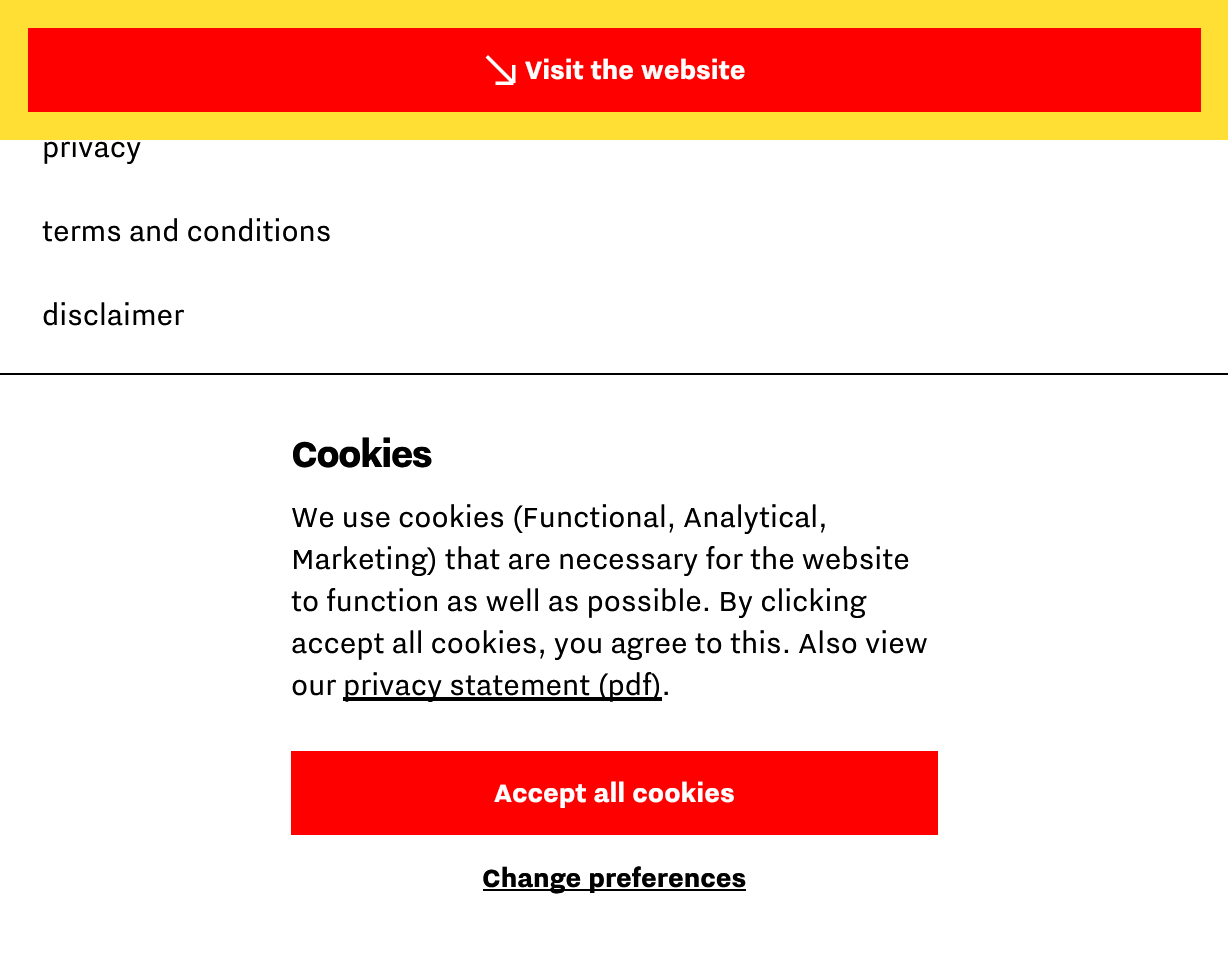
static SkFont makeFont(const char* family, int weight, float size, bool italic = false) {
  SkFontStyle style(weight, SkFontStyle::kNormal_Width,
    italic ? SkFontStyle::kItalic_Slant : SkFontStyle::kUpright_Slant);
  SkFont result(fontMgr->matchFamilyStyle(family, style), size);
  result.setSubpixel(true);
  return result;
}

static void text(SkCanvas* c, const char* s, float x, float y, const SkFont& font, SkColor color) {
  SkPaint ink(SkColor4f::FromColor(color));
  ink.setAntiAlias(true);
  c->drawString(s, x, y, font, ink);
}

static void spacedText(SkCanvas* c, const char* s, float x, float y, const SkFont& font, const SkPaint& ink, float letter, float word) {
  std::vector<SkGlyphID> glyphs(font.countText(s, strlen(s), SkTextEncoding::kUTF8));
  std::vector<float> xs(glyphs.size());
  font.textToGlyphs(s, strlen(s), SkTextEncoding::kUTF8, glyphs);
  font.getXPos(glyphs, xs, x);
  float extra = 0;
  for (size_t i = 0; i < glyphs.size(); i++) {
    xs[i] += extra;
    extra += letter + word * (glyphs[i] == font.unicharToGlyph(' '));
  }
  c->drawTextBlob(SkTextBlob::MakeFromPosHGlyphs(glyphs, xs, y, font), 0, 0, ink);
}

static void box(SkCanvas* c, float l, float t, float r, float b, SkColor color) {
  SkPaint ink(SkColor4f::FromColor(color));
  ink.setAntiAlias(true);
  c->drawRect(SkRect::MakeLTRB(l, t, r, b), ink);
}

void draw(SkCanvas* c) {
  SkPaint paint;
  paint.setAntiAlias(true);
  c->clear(0xffffffff);
  SkFont face1 = makeFont("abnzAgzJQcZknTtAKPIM", 400, 35);
  text(c, "privacy", 42, 157, face1, 0xff000000);
  box(c, 0, 0, 1228, 140, 0xffffdf33);
  box(c, 28, 28, 1201, 112, 0xffff0000);
  paint.setColor(0xffffffff);
  c->drawPath(SkPathBuilder().moveTo(495.5f, 81.5f).lineTo(509.5f, 81.5f).lineTo(485.5f, 57.5f).lineTo(488, 55).lineTo(512, 79).lineTo(512, 65).lineTo(515.5f, 65).lineTo(515.5f, 83).lineTo(513.5f, 83).lineTo(513.5f, 85).lineTo(495.5f, 85).close().detach(), paint);
  SkFont face2 = makeFont("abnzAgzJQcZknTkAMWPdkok", 800, 31.5f);
  text(c, "Visit the website", 525, 79, face2, 0xffffffff);
  text(c, "terms and conditions", 42, 241, face1, 0xff000000);
  text(c, "disclaimer", 42, 325, face1, 0xff000000);
  box(c, 0, 373, 1228, 375, 0xff000000);
  SkFont face3 = makeFont("abnzAgzJQcZknTkAMWPdkok", 800, 45.5f);
  paint.setColor(0xff000000);
  spacedText(c, "Cookies", 291, 467, face3, paint, -1.75f, 0);
  text(c, "We use cookies (Functional, Analytical,", 291, 527, face1, 0xff000000);
  text(c, "Marketing) that are necessary for the website", 291, 569, face1, 0xff000000);
  text(c, "to function as well as possible. By clicking", 291, 611, face1, 0xff000000);
  text(c, "accept all cookies, you agree to this. Also view", 291, 653, face1, 0xff000000);
  text(c, "our", 291, 695, face1, 0xff000000);
  box(c, 343, 697, 662, 701, 0xff000000);
  text(c, "privacy statement (pdf).", 343, 695, face1, 0xff000000);
  box(c, 291, 751, 938, 835, 0xffff0000);
  text(c, "Accept all cookies", 494, 802, face2, 0xffffffff);
  box(c, 483, 889, 746, 891, 0xff000000);
  text(c, "Change preferences", 482, 887, face2, 0xff000000);
}
